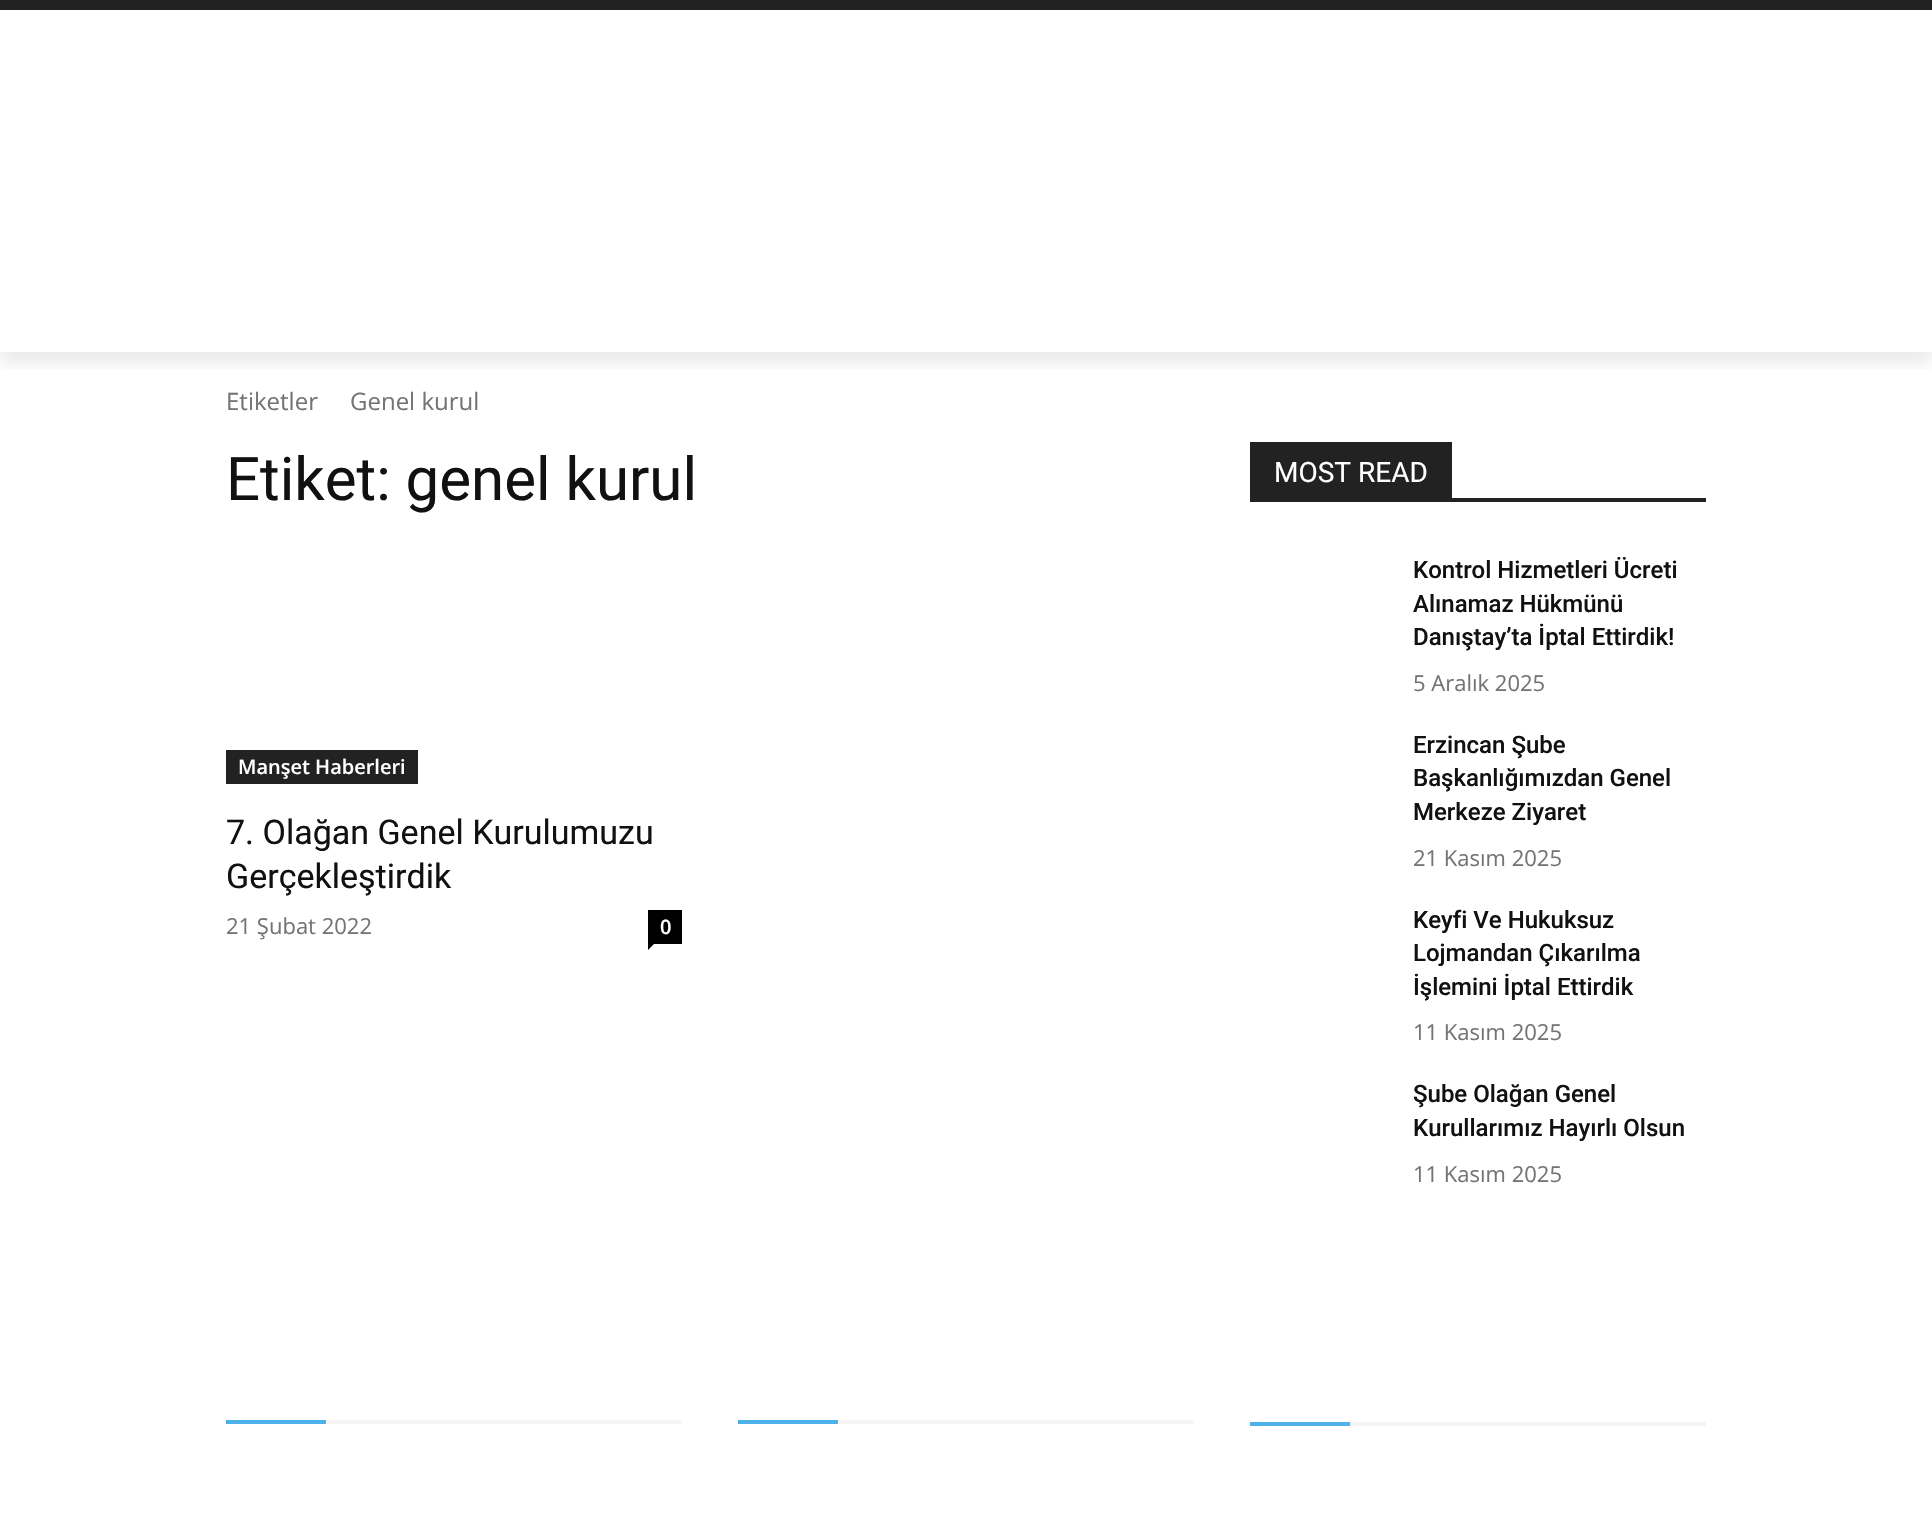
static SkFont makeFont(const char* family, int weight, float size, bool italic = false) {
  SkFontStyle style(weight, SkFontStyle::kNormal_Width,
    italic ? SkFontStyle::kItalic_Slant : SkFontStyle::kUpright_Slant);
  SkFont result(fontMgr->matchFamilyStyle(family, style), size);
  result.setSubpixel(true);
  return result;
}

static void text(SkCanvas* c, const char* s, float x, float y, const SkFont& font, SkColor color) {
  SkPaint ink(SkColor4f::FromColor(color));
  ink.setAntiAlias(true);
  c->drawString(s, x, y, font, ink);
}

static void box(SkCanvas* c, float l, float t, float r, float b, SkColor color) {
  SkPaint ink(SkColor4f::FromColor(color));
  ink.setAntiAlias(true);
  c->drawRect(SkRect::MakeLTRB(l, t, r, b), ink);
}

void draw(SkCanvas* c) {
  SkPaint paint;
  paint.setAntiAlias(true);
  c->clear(0xffffffff);
  box(c, 0, 0, 1932, 10, 0xff222222);
  c->save();
  c->clipRect(SkRect::MakeLTRB(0, 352, 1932, 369));
  paint.setColor(0x14000000);
  paint.setMaskFilter(SkMaskFilter::MakeBlur(kNormal_SkBlurStyle, 8));
  c->drawRect(SkRect::MakeLTRB(0, -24, 1932, 364), paint);
  paint.setMaskFilter(nullptr);
  c->restore();
  SkFont face1 = makeFont("Open Sans", 400, 24);
  text(c, "Etiketler", 226, 410, face1, 0xff747474);
  text(c, "Genel kurul", 350, 410, face1, 0xff747474);
  SkFont face2 = makeFont("Roboto", 400, 60);
  text(c, "Etiket: genel kurul", 226, 500, face2, 0xff111111);
  box(c, 226, 750, 418, 784, 0xff222222);
  SkFont face3 = makeFont("Open Sans", 600, 20);
  text(c, "Manşet Haberleri", 238, 774, face3, 0xffffffff);
  SkFont face4 = makeFont("Roboto", 400, 34);
  text(c, "7. Olağan Genel Kurulumuzu", 226, 844, face4, 0xff111111);
  text(c, "Gerçekleştirdik", 226, 888, face4, 0xff111111);
  SkFont face5 = makeFont("Open Sans", 400, 22);
  text(c, "21 Şubat 2022", 226, 934, face5, 0xff747474);
  box(c, 648, 910, 682, 944, 0xff000000);
  text(c, "0", 660, 934, face3, 0xffffffff);
  paint.setColor(0xff000000);
  c->drawPath(SkPathBuilder().moveTo(648, 944).lineTo(654, 944).lineTo(648, 950).close().detach(), paint);
  box(c, 1250, 498, 1706, 502, 0xff222222);
  box(c, 1250, 442, 1452, 498, 0xff222222);
  SkFont face6 = makeFont("Roboto", 400, 28);
  text(c, "MOST READ", 1274, 482, face6, 0xffffffff);
  SkFont face7 = makeFont("Roboto", 500, 24);
  text(c, "Kontrol Hizmetleri Ücreti", 1413, 578, face7, 0xff111111);
  text(c, "Alınamaz Hükmünü", 1413, 612, face7, 0xff111111);
  text(c, "Danıştay’ta İptal Ettirdik!", 1413, 645, face7, 0xff111111);
  text(c, "5 Aralık 2025", 1413, 691, face5, 0xff747474);
  text(c, "Erzincan Şube", 1413, 753, face7, 0xff111111);
  text(c, "Başkanlığımızdan Genel", 1413, 786, face7, 0xff111111);
  text(c, "Merkeze Ziyaret", 1413, 820, face7, 0xff111111);
  text(c, "21 Kasım 2025", 1413, 866, face5, 0xff747474);
  text(c, "Keyfi Ve Hukuksuz", 1413, 928, face7, 0xff111111);
  text(c, "Lojmandan Çıkarılma", 1413, 961, face7, 0xff111111);
  text(c, "İşlemini İptal Ettirdik", 1413, 995, face7, 0xff111111);
  text(c, "11 Kasım 2025", 1413, 1040, face5, 0xff747474);
  text(c, "Şube Olağan Genel", 1413, 1102, face7, 0xff111111);
  text(c, "Kurullarımız Hayırlı Olsun", 1413, 1136, face7, 0xff111111);
  text(c, "11 Kasım 2025", 1413, 1182, face5, 0xff747474);
  box(c, 226, 1420, 326, 1424, 0xff4db2ec);
  box(c, 326, 1420, 682, 1424, 0xfff5f5f5);
  box(c, 738, 1420, 838, 1424, 0xff4db2ec);
  box(c, 838, 1420, 1194, 1424, 0xfff5f5f5);
  box(c, 1250, 1422, 1350, 1426, 0xff4db2ec);
  box(c, 1350, 1422, 1706, 1426, 0xfff5f5f5);
}
